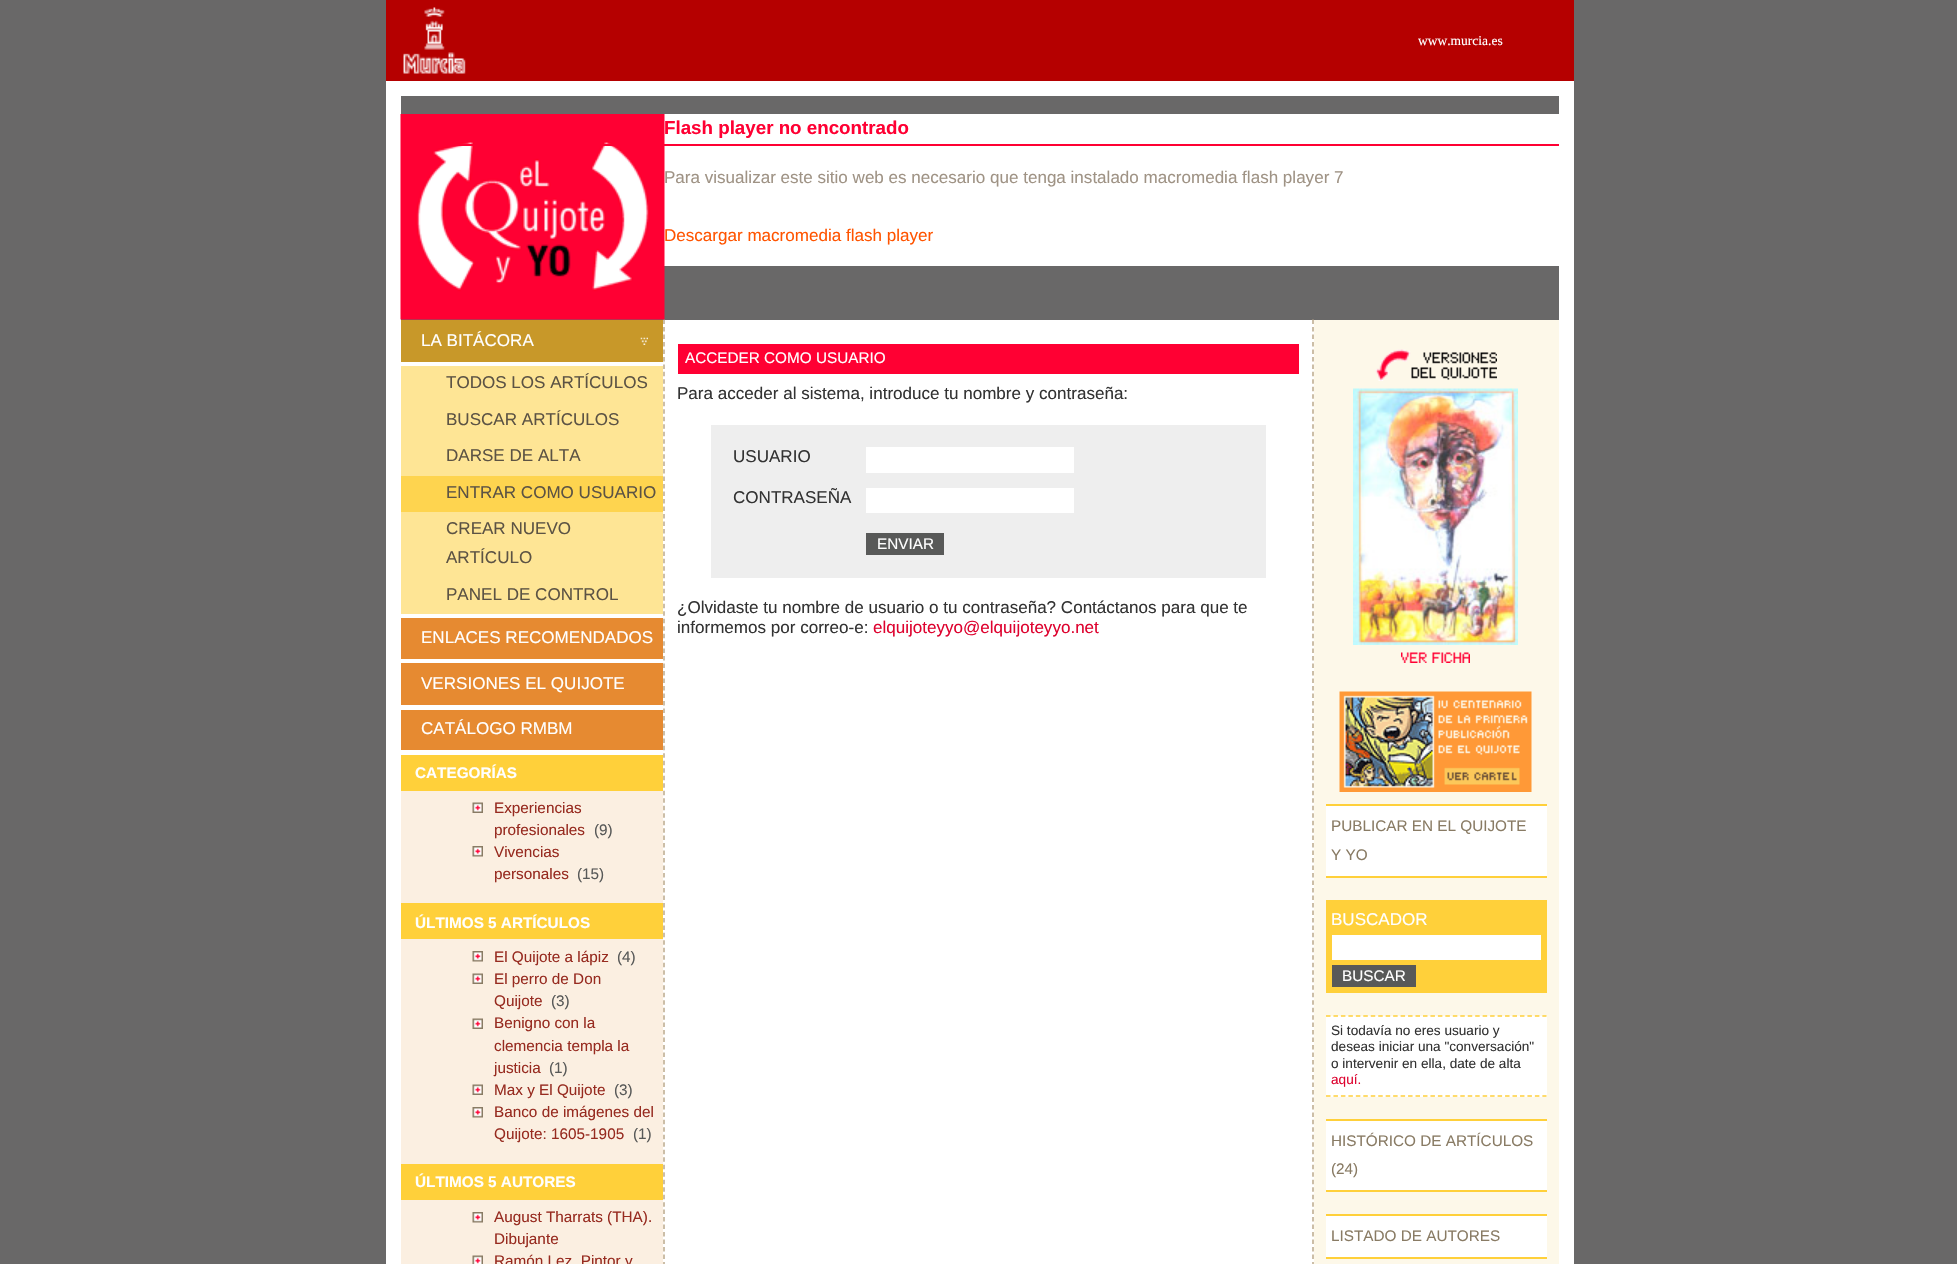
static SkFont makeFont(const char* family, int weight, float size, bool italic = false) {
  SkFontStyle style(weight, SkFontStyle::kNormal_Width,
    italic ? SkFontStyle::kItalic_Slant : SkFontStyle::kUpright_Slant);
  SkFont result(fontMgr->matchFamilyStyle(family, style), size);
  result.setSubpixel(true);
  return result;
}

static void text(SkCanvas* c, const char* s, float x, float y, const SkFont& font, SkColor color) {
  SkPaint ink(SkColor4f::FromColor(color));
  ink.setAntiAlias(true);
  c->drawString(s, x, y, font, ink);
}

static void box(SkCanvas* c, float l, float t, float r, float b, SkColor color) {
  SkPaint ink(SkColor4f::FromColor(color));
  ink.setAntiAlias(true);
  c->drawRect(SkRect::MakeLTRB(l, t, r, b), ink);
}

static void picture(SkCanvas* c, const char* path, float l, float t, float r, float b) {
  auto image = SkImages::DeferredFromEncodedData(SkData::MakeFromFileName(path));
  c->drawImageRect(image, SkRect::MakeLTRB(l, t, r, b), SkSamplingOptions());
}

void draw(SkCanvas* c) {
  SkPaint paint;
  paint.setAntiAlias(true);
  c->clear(0xff696868);
  box(c, 386, 0, 1574, 81, 0xffb50000);
  picture(c, "img_01.png", 403, 7, 466, 74);
  SkFont face1 = makeFont("Liberation Serif", 400, 13.5f);
  text(c, "www.murcia.es", 1418, 45, face1, 0xffffffff);
  paint.setStyle(SkPaint::kStroke_Style);
  paint.setStrokeWidth(15);
  paint.setColor(0xffffffff);
  c->drawRect(SkRect::MakeLTRB(393.5f, 88.5f, 1566.5f, 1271.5f), paint);
  box(c, 664, 114, 1559, 266, 0xffffffff);
  box(c, 663, 320, 1314, 1264, 0xffffffff);
  paint.setStrokeWidth(1.5f);
  paint.setColor(0xffbca98a);
  paint.setPathEffect(SkDashPathEffect::Make({{4.5f, 2.98f}}, 0));
  c->drawPath(SkPathBuilder().moveTo(664, 319.5f).lineTo(664, 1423.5f).detach(), paint);
  paint.setPathEffect(nullptr);
  picture(c, "img_02.png", 400, 114, 665, 320);
  box(c, 448, 144, 1559, 146, 0xffff0033);
  SkFont face2 = makeFont("Liberation Sans", 700, 18.75f);
  text(c, "Flash player no encontrado", 664, 134, face2, 0xffff0033);
  SkFont face3 = makeFont("Liberation Sans", 400, 17.05f);
  text(c, "Para visualizar este sitio web es necesario que tenga instalado macromedia flash player 7", 664, 183, face3, 0xff9f9385);
  text(c, "Descargar macromedia flash player", 664, 241, face3, 0xffff5400);
  box(c, 401, 791, 663, 1264, 0xfffbefe1);
  box(c, 401, 320, 663, 362, 0xffc89829);
  box(c, 401, 362, 663, 366, 0xffffffff);
  text(c, "LA BITÁCORA", 421, 346, face3, 0xffffffff);
  picture(c, "img_03.png", 640, 337, 648, 345);
  box(c, 401, 614, 663, 618, 0xffffffff);
  box(c, 401, 366, 663, 476, 0xfffee595);
  text(c, "TODOS LOS ARTÍCULOS", 446, 388, face3, 0xff5c5344);
  text(c, "BUSCAR ARTÍCULOS", 446, 425, face3, 0xff5c5344);
  text(c, "DARSE DE ALTA", 446, 461, face3, 0xff5c5344);
  box(c, 401, 476, 663, 512, 0xfffed44f);
  text(c, "ENTRAR COMO USUARIO", 446, 498, face3, 0xff5c5344);
  box(c, 401, 512, 663, 614, 0xfffee595);
  text(c, "CREAR NUEVO", 446, 534, face3, 0xff5c5344);
  text(c, "ARTÍCULO", 446, 563, face3, 0xff5c5344);
  text(c, "PANEL DE CONTROL", 446, 600, face3, 0xff5c5344);
  box(c, 401, 618, 663, 659, 0xffe68a31);
  box(c, 401, 659, 663, 663, 0xffffffff);
  text(c, "ENLACES RECOMENDADOS", 421, 643, face3, 0xffffffff);
  box(c, 401, 663, 663, 705, 0xffe68a31);
  box(c, 401, 705, 663, 710, 0xffffffff);
  text(c, "VERSIONES EL QUIJOTE", 421, 689, face3, 0xffffffff);
  box(c, 401, 710, 663, 750, 0xffe68a31);
  box(c, 401, 750, 663, 755, 0xffffffff);
  text(c, "CATÁLOGO RMBM", 421, 734, face3, 0xffffffff);
  box(c, 401, 755, 663, 791, 0xffffd03a);
  SkFont face4 = makeFont("Liberation Sans", 700, 15.3f);
  text(c, "CATEGORÍAS", 415, 778, face4, 0xffffffff);
  picture(c, "img_04.png", 472, 802, 483, 813);
  SkFont face5 = makeFont("Liberation Sans", 400, 15.3f);
  text(c, "Experiencias", 494, 813, face5, 0xff972b20);
  text(c, "profesionales", 494, 835, face5, 0xff972b20);
  text(c, "(9)", 594, 835, face5, 0xff585958);
  picture(c, "img_05.png", 472, 846, 483, 857);
  text(c, "Vivencias", 494, 857, face5, 0xff972b20);
  text(c, "personales", 494, 879, face5, 0xff972b20);
  text(c, "(15)", 577, 879, face5, 0xff585958);
  box(c, 401, 903, 663, 939, 0xffffd03a);
  text(c, "ÚLTIMOS 5 ARTÍCULOS", 415, 928, face4, 0xffffffff);
  picture(c, "img_05.png", 472, 951, 483, 962);
  text(c, "El Quijote a lápiz", 494, 962, face5, 0xff972b20);
  text(c, "(4)", 617, 962, face5, 0xff585958);
  picture(c, "img_04.png", 472, 973, 483, 984);
  text(c, "El perro de Don", 494, 984, face5, 0xff972b20);
  text(c, "Quijote", 494, 1006, face5, 0xff972b20);
  text(c, "(3)", 551, 1006, face5, 0xff585958);
  picture(c, "img_04.png", 472, 1018, 483, 1029);
  text(c, "Benigno con la", 494, 1028, face5, 0xff972b20);
  text(c, "clemencia templa la", 494, 1051, face5, 0xff972b20);
  text(c, "justicia", 494, 1073, face5, 0xff972b20);
  text(c, "(1)", 549, 1073, face5, 0xff585958);
  picture(c, "img_04.png", 472, 1084, 483, 1095);
  text(c, "Max y El Quijote", 494, 1095, face5, 0xff972b20);
  text(c, "(3)", 614, 1095, face5, 0xff585958);
  picture(c, "img_05.png", 472, 1107, 483, 1118);
  text(c, "Banco de imágenes del", 494, 1117, face5, 0xff972b20);
  text(c, "Quijote: 1605-1905", 494, 1139, face5, 0xff972b20);
  text(c, "(1)", 633, 1139, face5, 0xff585958);
  box(c, 401, 1164, 663, 1200, 0xffffd03a);
  text(c, "ÚLTIMOS 5 AUTORES", 415, 1187, face4, 0xffffffff);
  picture(c, "img_05.png", 472, 1212, 483, 1223);
  text(c, "August Tharrats (THA).", 494, 1222, face5, 0xff972b20);
  text(c, "Dibujante", 494, 1244, face5, 0xff972b20);
  picture(c, "img_06.png", 472, 1255, 483, 1264);
  text(c, "Ramón Lez. Pintor y", 494, 1266, face5, 0xff972b20);
  paint.setPathEffect(SkDashPathEffect::Make({{4.5f, 2.98f}}, 0));
  c->drawPath(SkPathBuilder().moveTo(1313, 319.5f).lineTo(1313, 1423.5f).detach(), paint);
  paint.setPathEffect(nullptr);
  box(c, 678, 344, 1299, 374, 0xffff0033);
  text(c, "ACCEDER COMO USUARIO", 685, 363, face5, 0xffffffff);
  text(c, "Para acceder al sistema, introduce tu nombre y contraseña:", 677, 399, face3, 0xff333333);
  box(c, 711, 425, 1266, 578, 0xffeeeeee);
  text(c, "USUARIO", 733, 462, face3, 0xff333333);
  box(c, 866, 447, 1074, 473, 0xffffffff);
  text(c, "CONTRASEÑA", 733, 503, face3, 0xff333333);
  box(c, 866, 488, 1074, 513, 0xffffffff);
  box(c, 866, 533, 944, 555, 0xff585958);
  text(c, "ENVIAR", 877, 549, face5, 0xffffffff);
  text(c, "¿Olvidaste tu nombre de usuario o tu contraseña? Contáctanos para que te", 677, 613, face3, 0xff333333);
  text(c, "informemos por correo-e:", 677, 633, face3, 0xff333333);
  text(c, "elquijoteyyo@elquijoteyyo.net", 873, 633, face3, 0xffde032f);
  box(c, 1314, 320, 1559, 1264, 0xfffdf8e9);
  picture(c, "img_07.png", 1375, 349, 1497, 381);
  picture(c, "img_08.png", 1353, 388, 1518, 645);
  picture(c, "img_09.png", 1401, 652, 1470, 663);
  picture(c, "img_10.png", 1339, 691, 1532, 792);
  box(c, 1326, 806, 1547, 876, 0xffffffff);
  box(c, 1326, 804, 1547, 806, 0xffffd03a);
  box(c, 1326, 876, 1547, 878, 0xffffd03a);
  text(c, "PUBLICAR EN EL QUIJOTE", 1331, 831, face5, 0xff897b64);
  text(c, "Y YO", 1331, 860, face5, 0xff897b64);
  box(c, 1326, 900, 1547, 993, 0xffffd03a);
  text(c, "BUSCADOR", 1331, 925, face3, 0xffffffff);
  box(c, 1332, 935, 1541, 960, 0xffffffff);
  box(c, 1332, 965, 1416, 987, 0xff585958);
  text(c, "BUSCAR", 1342, 981, face5, 0xffffffff);
  box(c, 1326, 1016, 1547, 1097, 0xffffffff);
  paint.setColor(0xffffd03a);
  paint.setPathEffect(SkDashPathEffect::Make({{4.5f, 2.96f}}, 0));
  c->drawPath(SkPathBuilder().moveTo(1326, 1016).lineTo(1546.5f, 1016).detach(), paint);
  paint.setPathEffect(nullptr);
  paint.setPathEffect(SkDashPathEffect::Make({{4.5f, 2.96f}}, 0));
  c->drawPath(SkPathBuilder().moveTo(1326, 1096).lineTo(1546.5f, 1096).detach(), paint);
  paint.setPathEffect(nullptr);
  SkFont face6 = makeFont("Liberation Sans", 400, 13.6f);
  text(c, "Si todavía no eres usuario y", 1331, 1035, face6, 0xff333333);
  text(c, "deseas iniciar una \"conversación\"", 1331, 1051, face6, 0xff333333);
  text(c, "o intervenir en ella, date de alta", 1331, 1068, face6, 0xff333333);
  text(c, "aquí.", 1331, 1084, face6, 0xffde032f);
  box(c, 1326, 1121, 1547, 1190, 0xffffffff);
  box(c, 1326, 1119, 1547, 1121, 0xffffd03a);
  box(c, 1326, 1190, 1547, 1192, 0xffffd03a);
  text(c, "HISTÓRICO DE ARTÍCULOS", 1331, 1146, face5, 0xff897b64);
  text(c, "(24)", 1331, 1174, face5, 0xff897b64);
  box(c, 1326, 1216, 1547, 1257, 0xffffffff);
  box(c, 1326, 1214, 1547, 1216, 0xffffd03a);
  box(c, 1326, 1257, 1547, 1259, 0xffffd03a);
  text(c, "LISTADO DE AUTORES", 1331, 1241, face5, 0xff897b64);
}
